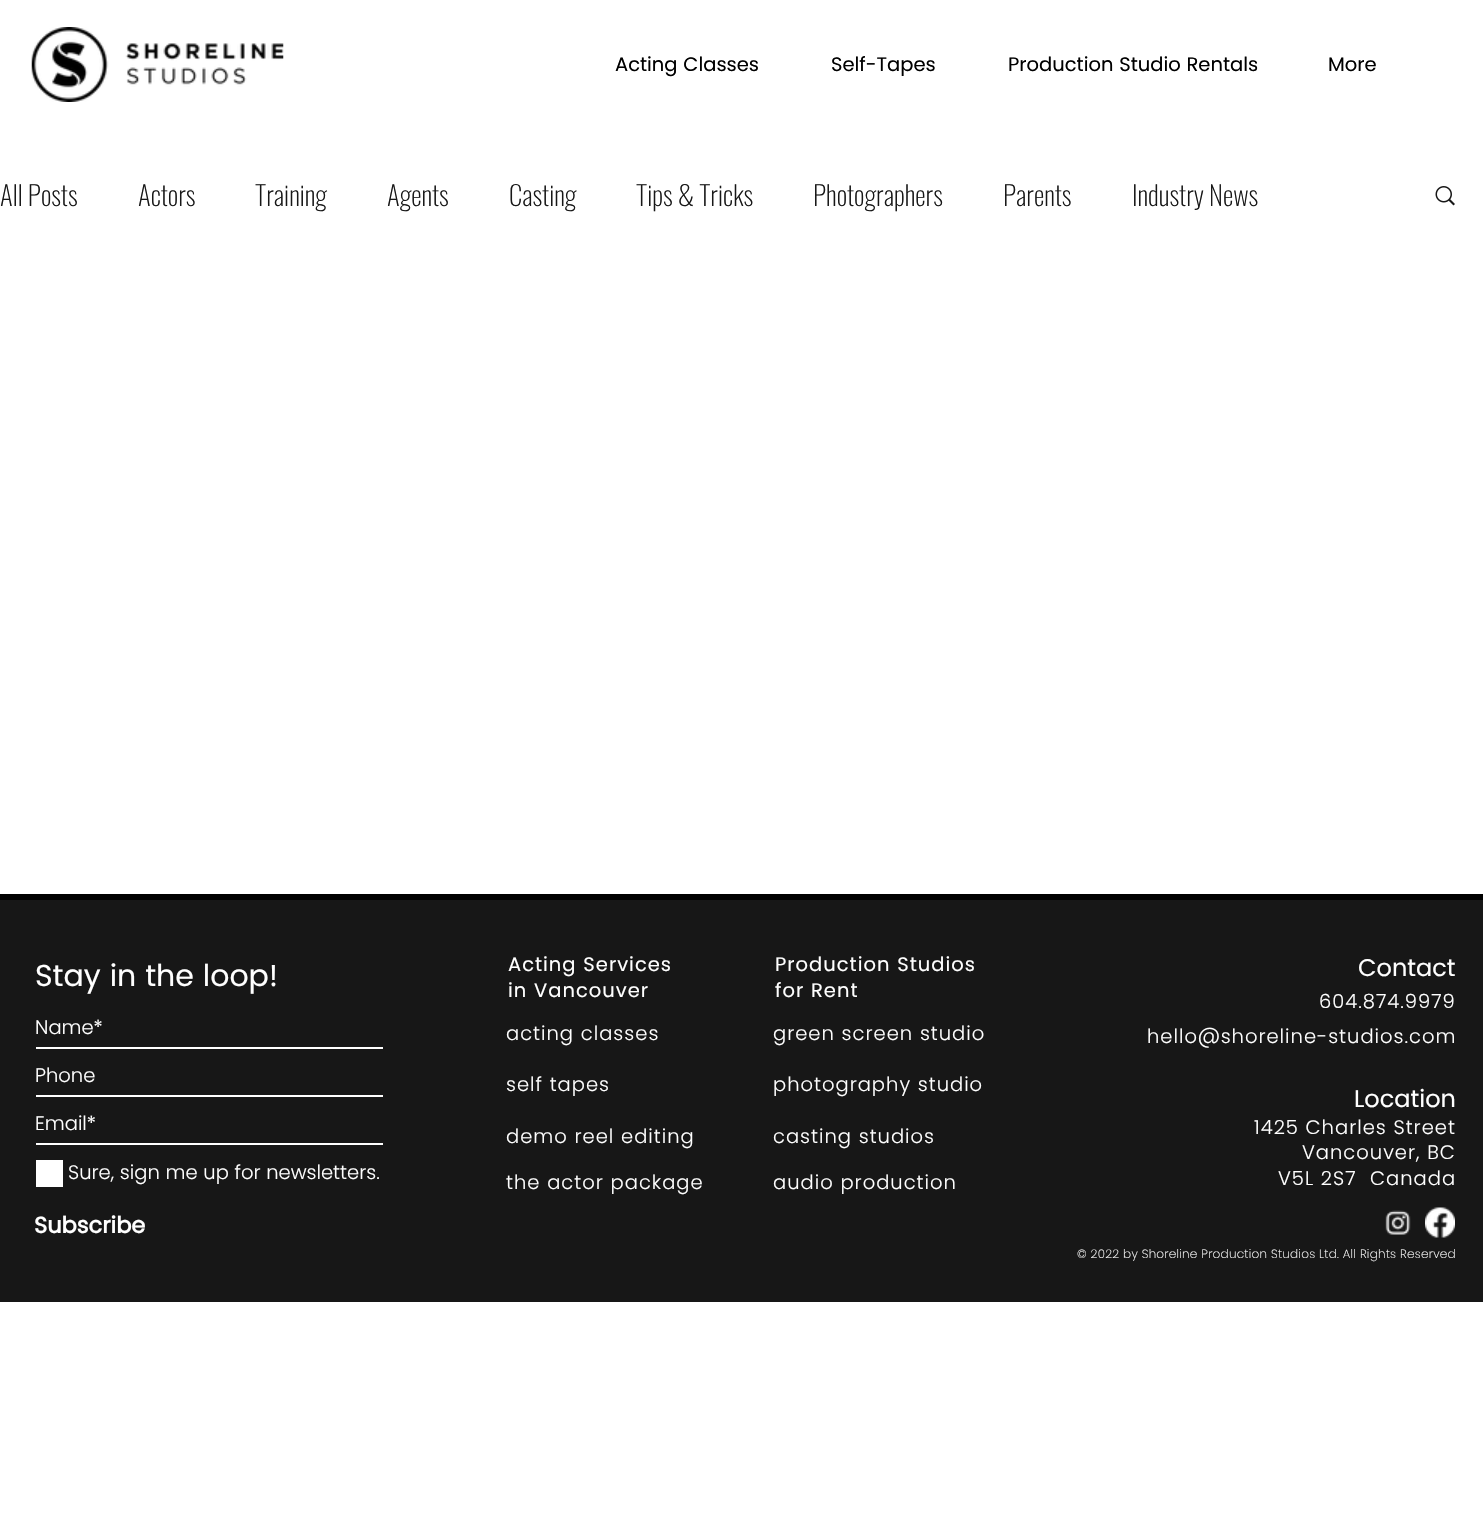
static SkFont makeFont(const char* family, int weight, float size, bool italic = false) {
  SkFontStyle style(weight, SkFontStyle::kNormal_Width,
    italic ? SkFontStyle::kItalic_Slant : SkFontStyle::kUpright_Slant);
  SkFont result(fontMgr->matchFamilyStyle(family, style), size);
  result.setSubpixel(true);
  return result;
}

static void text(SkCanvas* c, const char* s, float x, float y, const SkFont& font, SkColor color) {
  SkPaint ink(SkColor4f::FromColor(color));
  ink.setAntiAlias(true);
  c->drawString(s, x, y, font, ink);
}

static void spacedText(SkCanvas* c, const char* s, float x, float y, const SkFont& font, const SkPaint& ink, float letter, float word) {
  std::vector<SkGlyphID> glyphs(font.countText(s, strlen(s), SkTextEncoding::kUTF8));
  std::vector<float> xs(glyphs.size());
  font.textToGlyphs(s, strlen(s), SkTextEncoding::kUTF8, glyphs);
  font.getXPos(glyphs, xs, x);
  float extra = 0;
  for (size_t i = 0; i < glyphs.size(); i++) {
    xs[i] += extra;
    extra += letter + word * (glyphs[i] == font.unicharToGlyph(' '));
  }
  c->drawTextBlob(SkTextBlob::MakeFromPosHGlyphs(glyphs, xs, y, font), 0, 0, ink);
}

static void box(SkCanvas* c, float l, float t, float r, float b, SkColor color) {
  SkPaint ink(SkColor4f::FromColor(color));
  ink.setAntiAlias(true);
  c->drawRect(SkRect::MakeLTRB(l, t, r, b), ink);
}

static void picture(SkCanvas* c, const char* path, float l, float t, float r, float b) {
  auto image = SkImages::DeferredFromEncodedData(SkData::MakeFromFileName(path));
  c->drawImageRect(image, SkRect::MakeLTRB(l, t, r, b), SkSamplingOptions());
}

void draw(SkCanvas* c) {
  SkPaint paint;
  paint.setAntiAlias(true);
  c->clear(0xffffffff);
  picture(c, "img_01.png", 31, 27, 284, 102);
  SkFont face1 = makeFont("Poppins", 400, 19.5f);
  text(c, "Acting Classes", 615, 71, face1, 0xff000000);
  text(c, "Self-Tapes", 831, 71, face1, 0xff000000);
  text(c, "Production Studio Rentals", 1008, 71, face1, 0xff000000);
  text(c, "More", 1328, 71, face1, 0xff000000);
  SkFont face2 = makeFont("Oswald", 200, 27);
  text(c, "All Posts", 0, 206, face2, 0xff171717);
  text(c, "Actors", 138, 206, face2, 0xff171717);
  text(c, "Training", 255, 206, face2, 0xff171717);
  text(c, "Agents", 387, 206, face2, 0xff171717);
  text(c, "Casting", 509, 206, face2, 0xff171717);
  text(c, "Tips & Tricks", 636, 206, face2, 0xff171717);
  text(c, "Photographers", 813, 206, face2, 0xff171717);
  text(c, "Parents", 1003, 206, face2, 0xff171717);
  text(c, "Industry News", 1132, 206, face2, 0xff171717);
  picture(c, "img_02.png", 1435, 186, 1455, 206);
  box(c, 0, 894, 1483, 900, 0xff000000);
  box(c, 0, 900, 1483, 1302, 0xff171717);
  SkFont face3 = makeFont("Poppins", 400, 30);
  text(c, "Stay in the loop!", 35, 986, face3, 0xffffffff);
  box(c, 36, 1047, 383, 1049, 0xffffffff);
  SkFont face4 = makeFont("Poppins", 300, 19.5f);
  text(c, "Name*", 35, 1034, face4, 0xffffffff);
  box(c, 36, 1095, 383, 1097, 0xffffffff);
  text(c, "Phone", 35, 1082, face4, 0xffffffff);
  box(c, 36, 1143, 383, 1145, 0xffffffff);
  text(c, "Email*", 35, 1130, face4, 0xffffffff);
  box(c, 36, 1160, 63, 1187, 0xffffffff);
  text(c, "Sure, sign me up for newsletters.", 68, 1179, face4, 0xffffffff);
  SkFont face5 = makeFont("Poppins", 700, 22.5f);
  text(c, "Subscribe", 34, 1233, face5, 0xffffffff);
  paint.setColor(0xffffffff);
  spacedText(c, "Acting Services", 508, 971, face1, paint, 1, 0);
  spacedText(c, "in Vancouver", 508, 997, face1, paint, 1, 0);
  spacedText(c, "Production Studios", 775, 971, face1, paint, 1, 0);
  spacedText(c, "for Rent", 775, 997, face1, paint, 1, 0);
  SkFont face6 = makeFont("Poppins", 400, 24);
  text(c, "Contact", 1358, 976, face6, 0xffffffff);
  spacedText(c, "604.874.9979", 1319, 1008, face4, paint, 1, 0);
  spacedText(c, "acting classes", 506, 1040, face4, paint, 1, 0);
  spacedText(c, "green screen studio", 773, 1040, face4, paint, 1, 0);
  spacedText(c, "hello@shoreline-studios.com", 1147, 1043, face4, paint, 1, 0);
  spacedText(c, "self tapes", 506, 1091, face4, paint, 1, 0);
  spacedText(c, "photography studio", 773, 1091, face4, paint, 1, 0);
  text(c, "Location", 1354, 1107, face6, 0xffffffff);
  spacedText(c, "demo reel editing", 506, 1143, face4, paint, 1, 0);
  spacedText(c, "casting studios", 773, 1143, face4, paint, 1, 0);
  spacedText(c, "1425 Charles Street", 1254, 1134, face4, paint, 1, 0);
  spacedText(c, "Vancouver, BC", 1302, 1159, face4, paint, 1, 0);
  spacedText(c, "V5L 2S7  Canada", 1278, 1185, face4, paint, 1, 0);
  spacedText(c, "the actor package", 506, 1189, face4, paint, 1, 0);
  spacedText(c, "audio production", 773, 1189, face4, paint, 1, 0);
  picture(c, "img_03.png", 1385, 1210, 1411, 1235);
  picture(c, "img_04.png", 1425, 1207, 1455, 1238);
  SkFont face7 = makeFont("Poppins", 200, 12);
  spacedText(c, "© 2022 by Shoreline Production Studios Ltd. All Rights Reserved", 1077, 1258, face7, paint, 0.25f, 0);
}
